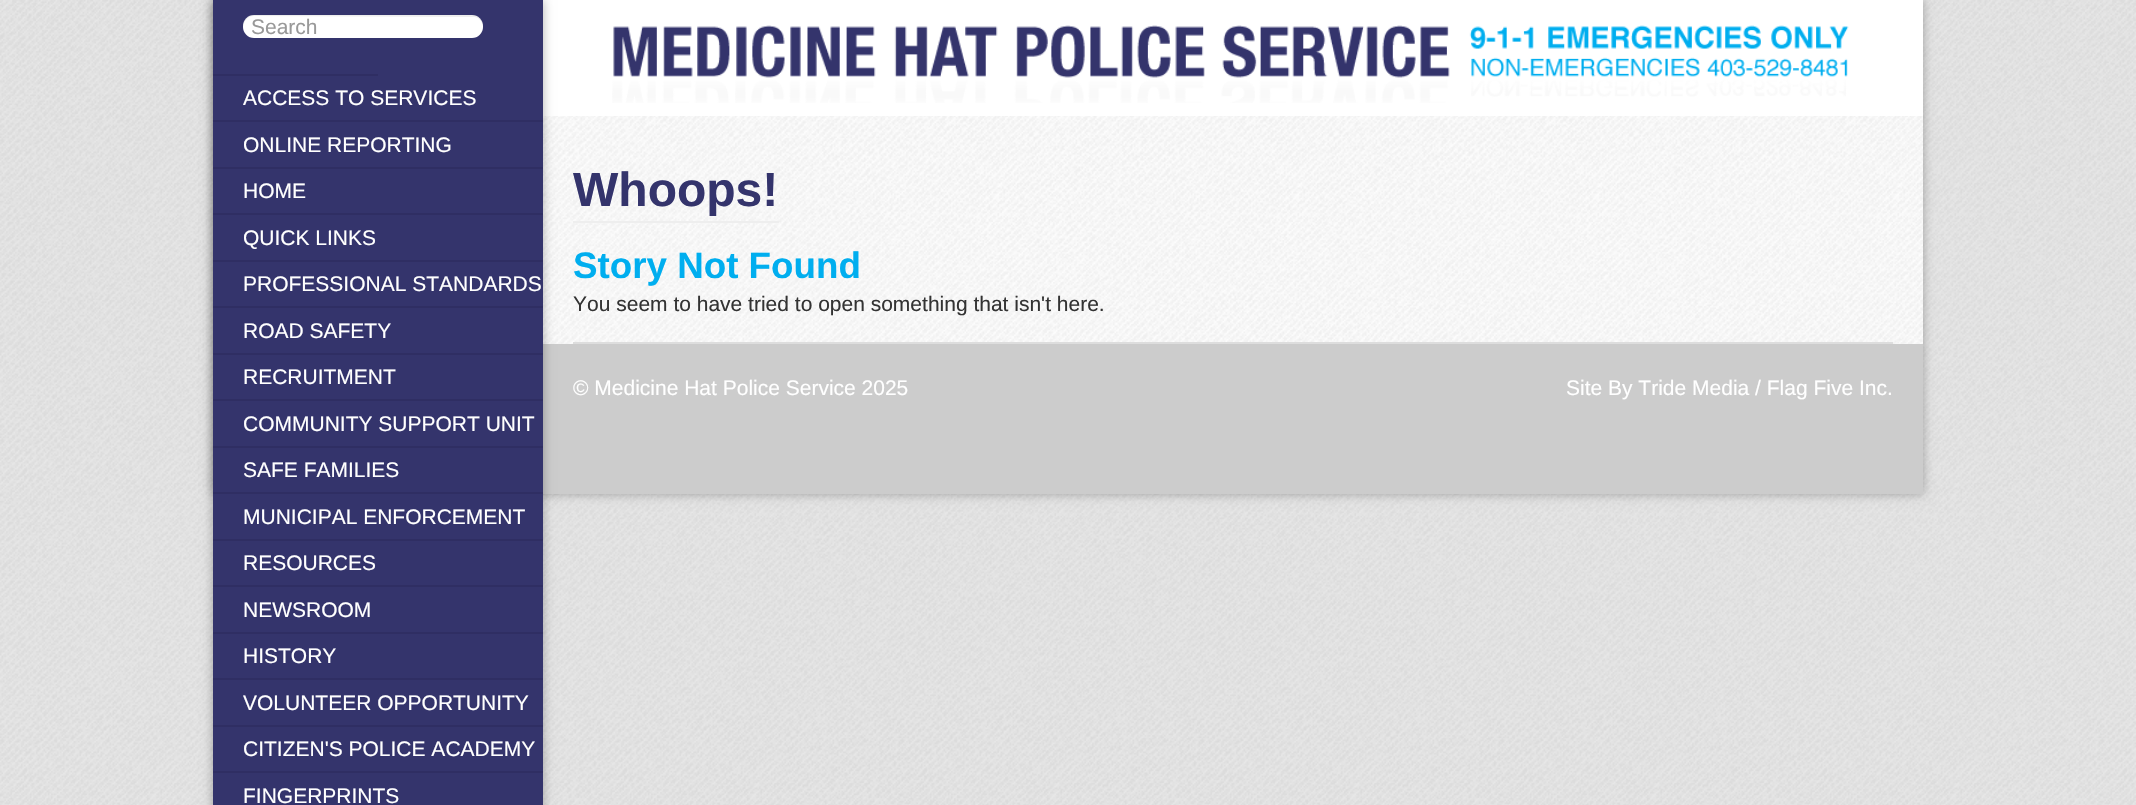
static SkFont makeFont(const char* family, int weight, float size, bool italic = false) {
  SkFontStyle style(weight, SkFontStyle::kNormal_Width,
    italic ? SkFontStyle::kItalic_Slant : SkFontStyle::kUpright_Slant);
  SkFont result(fontMgr->matchFamilyStyle(family, style), size);
  result.setSubpixel(true);
  return result;
}

static void text(SkCanvas* c, const char* s, float x, float y, const SkFont& font, SkColor color) {
  SkPaint ink(SkColor4f::FromColor(color));
  ink.setAntiAlias(true);
  c->drawString(s, x, y, font, ink);
}

static void box(SkCanvas* c, float l, float t, float r, float b, SkColor color) {
  SkPaint ink(SkColor4f::FromColor(color));
  ink.setAntiAlias(true);
  c->drawRect(SkRect::MakeLTRB(l, t, r, b), ink);
}

static void roundBox(SkCanvas* c, float l, float t, float r, float b, float radius, SkColor color) {
  SkPaint ink(SkColor4f::FromColor(color));
  ink.setAntiAlias(true);
  c->drawRoundRect(SkRect::MakeLTRB(l, t, r, b), radius, radius, ink);
}

static void picture(SkCanvas* c, const char* path, float l, float t, float r, float b) {
  auto image = SkImages::DeferredFromEncodedData(SkData::MakeFromFileName(path));
  c->drawImageRect(image, SkRect::MakeLTRB(l, t, r, b), SkSamplingOptions());
}

void draw(SkCanvas* c) {
  SkPaint paint;
  paint.setAntiAlias(true);
  c->clear(0xffffffff);
  picture(c, "img_01.png", 0, 0, 2136, 805);
  paint.setColor(0x4d000000);
  paint.setMaskFilter(SkMaskFilter::MakeBlur(kNormal_SkBlurStyle, 5));
  c->drawRect(SkRect::MakeLTRB(213, 0, 1923, 494), paint);
  paint.setMaskFilter(nullptr);
  picture(c, "img_02.png", 543, 116, 1923, 344);
  box(c, 543, 0, 1923, 116, 0xffffffff);
  box(c, 543, 344, 1923, 494, 0xffcccccc);
  paint.setMaskFilter(SkMaskFilter::MakeBlur(kNormal_SkBlurStyle, 5));
  c->drawRect(SkRect::MakeLTRB(213, 0, 543, 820), paint);
  paint.setMaskFilter(nullptr);
  box(c, 213, 0, 543, 805, 0xff34346c);
  box(c, 213, 74, 378, 76, 0xff2f2e63);
  roundBox(c, 243, 15, 483, 38, 11, 0xffffffff);
  paint.setColor(0x12000000);
  c->drawPath(SkPathBuilder().moveTo(254, 16).lineTo(475, 17).cubicTo(480, 18, 482, 22, 483, 26).cubicTo(483, 20, 478, 15, 472, 15).lineTo(254, 15).cubicTo(247, 15, 242, 22, 243, 29).cubicTo(243, 23, 246, 16, 254, 16).close().detach(), paint);
  SkFont face1 = makeFont("Liberation Sans", 400, 21);
  text(c, "Search", 251, 34, face1, 0xff999999);
  box(c, 213, 120, 543, 122, 0xff2f2e63);
  text(c, "ACCESS TO SERVICES", 243, 105, face1, 0xffffffff);
  box(c, 213, 167, 543, 169, 0xff2f2e63);
  text(c, "ONLINE REPORTING", 243, 152, face1, 0xffffffff);
  box(c, 213, 213, 543, 215, 0xff2f2e63);
  text(c, "HOME", 243, 198, face1, 0xffffffff);
  box(c, 213, 260, 543, 262, 0xff2f2e63);
  text(c, "QUICK LINKS", 243, 245, face1, 0xffffffff);
  box(c, 213, 306, 543, 308, 0xff2f2e63);
  text(c, "PROFESSIONAL STANDARDS", 243, 291, face1, 0xffffffff);
  box(c, 213, 353, 543, 355, 0xff2f2e63);
  text(c, "ROAD SAFETY", 243, 338, face1, 0xffffffff);
  box(c, 213, 399, 543, 401, 0xff2f2e63);
  text(c, "RECRUITMENT", 243, 384, face1, 0xffffffff);
  box(c, 213, 446, 543, 448, 0xff2f2e63);
  text(c, "COMMUNITY SUPPORT UNIT", 243, 431, face1, 0xffffffff);
  box(c, 213, 492, 543, 494, 0xff2f2e63);
  text(c, "SAFE FAMILIES", 243, 477, face1, 0xffffffff);
  box(c, 213, 539, 543, 541, 0xff2f2e63);
  text(c, "MUNICIPAL ENFORCEMENT", 243, 524, face1, 0xffffffff);
  box(c, 213, 585, 543, 587, 0xff2f2e63);
  text(c, "RESOURCES", 243, 570, face1, 0xffffffff);
  box(c, 213, 632, 543, 634, 0xff2f2e63);
  text(c, "NEWSROOM", 243, 617, face1, 0xffffffff);
  box(c, 213, 678, 543, 680, 0xff2f2e63);
  text(c, "HISTORY", 243, 663, face1, 0xffffffff);
  box(c, 213, 725, 543, 727, 0xff2f2e63);
  text(c, "VOLUNTEER OPPORTUNITY", 243, 710, face1, 0xffffffff);
  box(c, 213, 771, 543, 773, 0xff2f2e63);
  text(c, "CITIZEN'S POLICE ACADEMY", 243, 756, face1, 0xffffffff);
  text(c, "FINGERPRINTS", 243, 803, face1, 0xffffffff);
  picture(c, "img_03.png", 612, 25, 1849, 103);
  box(c, 573, 221, 779, 223, 0xffeeeeee);
  SkFont face2 = makeFont("Liberation Sans", 700, 48);
  text(c, "Whoops!", 573, 206, face2, 0xff34346c);
  box(c, 573, 342, 1893, 344, 0xffdddddd);
  SkFont face3 = makeFont("Liberation Sans", 700, 36.75f);
  text(c, "Story Not Found", 573, 278, face3, 0xff00aeef);
  text(c, "You seem to have tried to open something that isn't here.", 573, 311, face1, 0xff333333);
  text(c, "© Medicine Hat Police Service 2025", 573, 395, face1, 0xffffffff);
  text(c, "Site By Tride Media / Flag Five Inc.", 1566, 395, face1, 0xffffffff);
}
